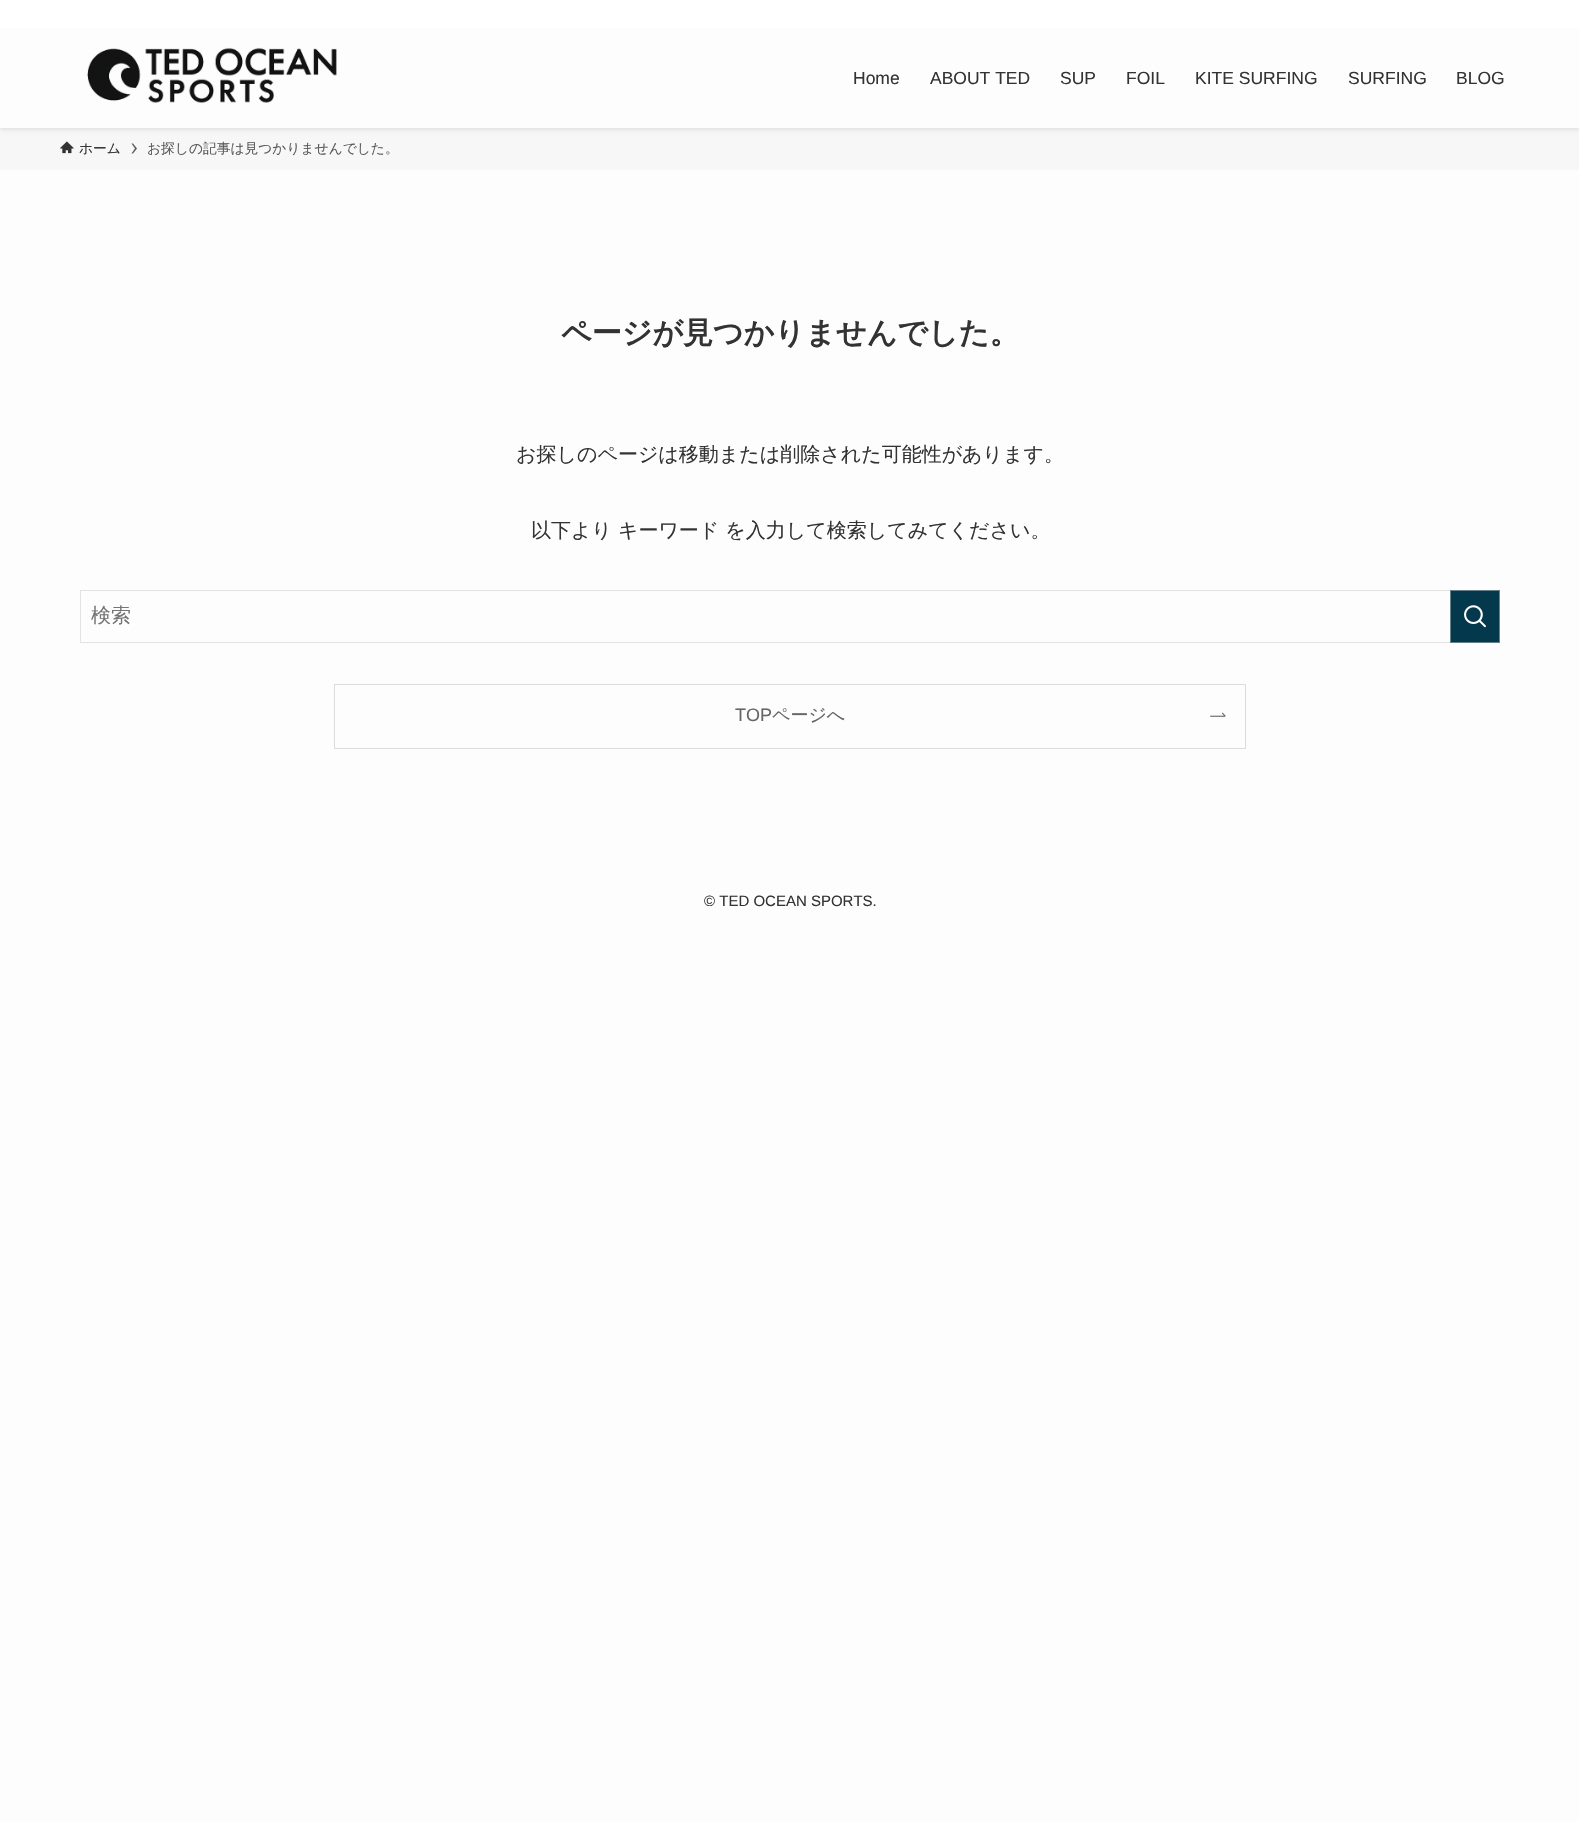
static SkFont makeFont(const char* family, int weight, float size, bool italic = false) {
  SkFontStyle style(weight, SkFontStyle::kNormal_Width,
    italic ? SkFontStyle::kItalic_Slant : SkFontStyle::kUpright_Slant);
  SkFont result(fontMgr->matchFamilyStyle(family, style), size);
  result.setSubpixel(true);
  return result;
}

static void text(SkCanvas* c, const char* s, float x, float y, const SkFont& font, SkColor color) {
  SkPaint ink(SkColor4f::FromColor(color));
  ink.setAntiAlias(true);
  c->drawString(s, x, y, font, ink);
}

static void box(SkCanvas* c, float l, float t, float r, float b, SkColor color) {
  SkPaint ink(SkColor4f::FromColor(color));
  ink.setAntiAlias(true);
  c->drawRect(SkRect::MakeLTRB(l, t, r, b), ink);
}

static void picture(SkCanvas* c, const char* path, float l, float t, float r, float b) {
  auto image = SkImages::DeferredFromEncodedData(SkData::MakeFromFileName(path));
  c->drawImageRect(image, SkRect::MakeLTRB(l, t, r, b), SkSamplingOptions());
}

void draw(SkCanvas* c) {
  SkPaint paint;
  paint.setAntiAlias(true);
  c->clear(0xfffdfdfd);
  box(c, 0, 128, 1579, 170, 0xfff7f7f7);
  paint.setColor(0x1f000000);
  paint.setMaskFilter(SkMaskFilter::MakeBlur(kNormal_SkBlurStyle, 2.5f));
  c->drawRect(SkRect::MakeLTRB(0, 1, 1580, 129), paint);
  paint.setMaskFilter(nullptr);
  box(c, 0, 28, 1579, 128, 0xfffdfdfd);
  box(c, 0, 0, 1579, 28, 0xffffffff);
  picture(c, "img_01.png", 87, 47, 337, 103);
  SkFont face1 = makeFont("Liberation Sans", 400, 17.5f);
  text(c, "Home", 853, 84, face1, 0xff333333);
  text(c, "ABOUT TED", 930, 84, face1, 0xff333333);
  text(c, "SUP", 1060, 84, face1, 0xff333333);
  text(c, "FOIL", 1126, 84, face1, 0xff333333);
  text(c, "KITE SURFING", 1195, 84, face1, 0xff333333);
  text(c, "SURFING", 1348, 84, face1, 0xff333333);
  text(c, "BLOG", 1456, 84, face1, 0xff333333);
  picture(c, "img_02.png", 60, 141, 74, 154);
  SkFont face2 = makeFont("WenQuanYi Zen Hei", 500, 13.75f);
  text(c, "ホーム", 79, 153, face2, 0xff333333);
  paint.setColor(0xff5a5a5a);
  c->drawPath(SkPathBuilder().moveTo(133, 143.5f).lineTo(131.5f, 143.5f).lineTo(135, 148.5f).lineTo(131.5f, 153.5f).lineTo(133, 153.5f).lineTo(137, 148.5f).close().detach(), paint);
  text(c, "お探しの記事は見つかりませんでした。", 147, 153, face2, 0xff5a5a5a);
  SkFont face3 = makeFont("WenQuanYi Zen Hei", 700, 30);
  text(c, "ページが見つかりませんでした。", 561, 343, face3, 0xff333333);
  SkFont face4 = makeFont("WenQuanYi Zen Hei", 500, 20);
  text(c, "お探しのページは移動または削除された可能性があります。", 516, 461, face4, 0xff333333);
  text(c, "以下より キーワード を入力して検索してみてください。", 531, 537, face4, 0xff333333);
  paint.setStyle(SkPaint::kStroke_Style);
  paint.setStrokeWidth(1);
  paint.setColor(0xffe3e3e3);
  c->drawRect(SkRect::MakeLTRB(80.5f, 590.5f, 1499.5f, 642.5f), paint);
  text(c, "検索", 91, 622, face4, 0xff757575);
  paint.setStyle(SkPaint::kFill_Style);
  paint.setColor(0xff04384c);
  c->drawRect(SkRect::MakeLTRB(1450.5f, 590.5f, 1499.5f, 642.5f), paint);
  paint.setStyle(SkPaint::kStroke_Style);
  paint.setColor(0xff66808a);
  c->drawRect(SkRect::MakeLTRB(1450.5f, 590.5f, 1499.5f, 642.5f), paint);
  picture(c, "img_03.png", 1464, 605, 1486, 628);
  paint.setColor(0xffdcdcdc);
  c->drawRect(SkRect::MakeLTRB(334.5f, 684.5f, 1245.5f, 748.5f), paint);
  SkFont face5 = makeFont("Liberation Sans", 400, 18);
  text(c, "TOP", 735, 721, face5, 0xff666666);
  SkFont face6 = makeFont("WenQuanYi Zen Hei", 500, 18);
  text(c, "ページへ", 772, 721, face6, 0xff666666);
  picture(c, "img_04.png", 1210, 712, 1226, 717);
  SkFont face7 = makeFont("Liberation Sans", 400, 15);
  text(c, "© TED OCEAN SPORTS.", 704, 906, face7, 0xff333333);
}
